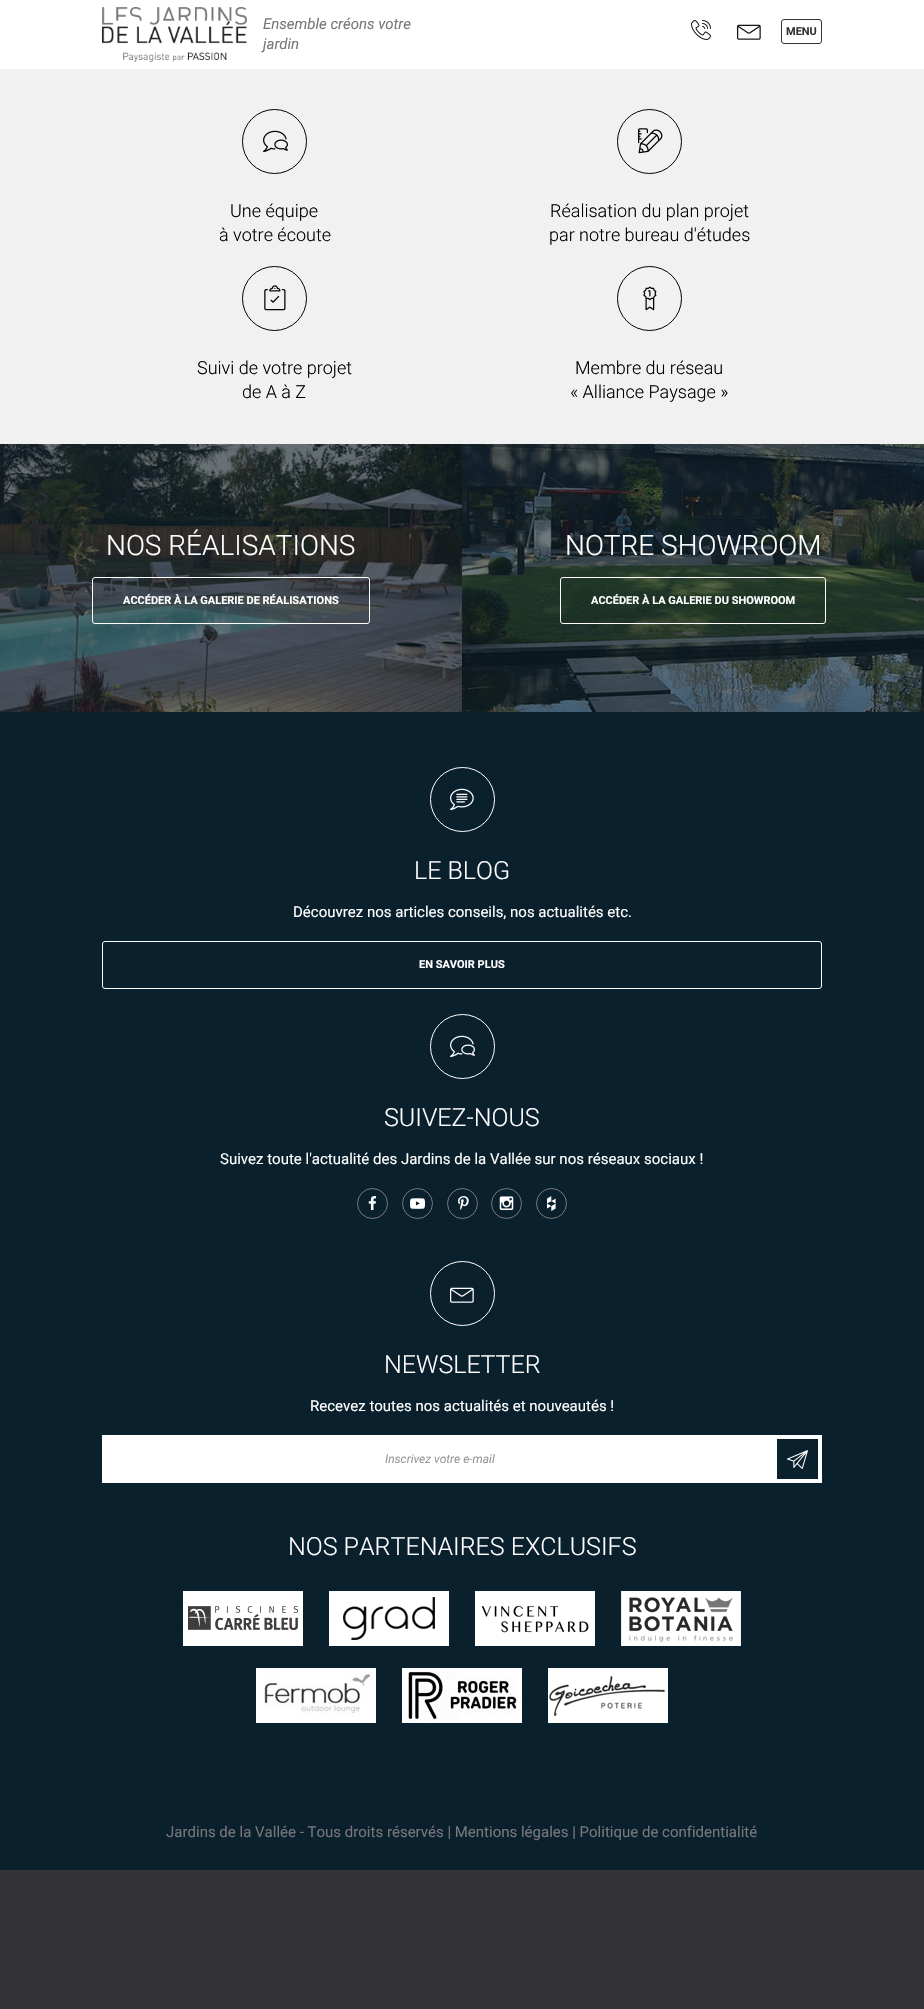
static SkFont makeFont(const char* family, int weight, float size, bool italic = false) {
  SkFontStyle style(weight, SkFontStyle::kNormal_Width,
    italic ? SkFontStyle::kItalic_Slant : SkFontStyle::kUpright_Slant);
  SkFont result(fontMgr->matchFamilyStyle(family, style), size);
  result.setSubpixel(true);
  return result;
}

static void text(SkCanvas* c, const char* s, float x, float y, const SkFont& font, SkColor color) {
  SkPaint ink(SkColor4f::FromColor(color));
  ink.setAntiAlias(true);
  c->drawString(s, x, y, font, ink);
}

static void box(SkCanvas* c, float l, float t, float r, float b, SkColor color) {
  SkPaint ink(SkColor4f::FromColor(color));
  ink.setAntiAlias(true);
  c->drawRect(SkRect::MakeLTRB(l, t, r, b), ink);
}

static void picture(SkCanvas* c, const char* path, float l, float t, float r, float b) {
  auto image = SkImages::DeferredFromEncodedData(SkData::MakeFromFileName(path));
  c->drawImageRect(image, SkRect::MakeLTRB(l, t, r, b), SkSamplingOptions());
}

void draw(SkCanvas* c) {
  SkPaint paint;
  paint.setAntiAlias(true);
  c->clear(0xff323237);
  box(c, 0, 0, 924, 69, 0xffffffff);
  picture(c, "img_01.png", 102, 7, 247, 62);
  SkFont face1 = makeFont("Roboto", 400, 15, true);
  text(c, "Ensemble créons votre", 263, 29, face1, 0xff77777b);
  text(c, "jardin", 263, 49, face1, 0xff77777b);
  picture(c, "img_02.png", 691, 20, 711, 40);
  picture(c, "img_03.png", 737, 24, 761, 40);
  paint.setStyle(SkPaint::kStroke_Style);
  paint.setStrokeWidth(1);
  paint.setColor(0xff323237);
  c->drawRoundRect(SkRect::MakeLTRB(781.5f, 19.5f, 821.5f, 43.5f), 2.5f, 2.5f, paint);
  SkFont face2 = makeFont("Roboto", 700, 11);
  text(c, "MENU", 786, 35, face2, 0xff323237);
  box(c, 0, 69, 924, 444, 0xfff1f1f1);
  paint.setColor(0xff000000);
  c->drawCircle(274.5f, 141.5f, 32, paint);
  picture(c, "img_04.png", 263, 130, 288, 152);
  SkFont face3 = makeFont("Roboto", 300, 18);
  text(c, "Une équipe", 230, 217, face3, 0xff000000);
  text(c, "à votre écoute", 219, 241, face3, 0xff000000);
  c->drawCircle(649.5f, 141.5f, 32, paint);
  picture(c, "img_05.png", 638, 128, 663, 154);
  text(c, "Réalisation du plan projet", 550, 217, face3, 0xff000000);
  text(c, "par notre bureau d'études", 549, 241, face3, 0xff000000);
  c->drawCircle(274.5f, 298.5f, 32, paint);
  picture(c, "img_06.png", 264, 285, 286, 311);
  text(c, "Suivi de votre projet", 197, 374, face3, 0xff000000);
  text(c, "de A à Z", 242, 398, face3, 0xff000000);
  c->drawCircle(649.5f, 298.5f, 32, paint);
  picture(c, "img_07.png", 643, 286, 657, 311);
  text(c, "Membre du réseau", 575, 374, face3, 0xff000000);
  text(c, "« Alliance Paysage »", 570, 398, face3, 0xff000000);
  picture(c, "img_08.png", 0, 444, 462, 712);
  SkFont face4 = makeFont("Roboto", 300, 28);
  text(c, "NOS RÉALISATIONS", 106, 555, face4, 0xffffffff);
  paint.setColor(0xffffffff);
  c->drawRoundRect(SkRect::MakeLTRB(92.5f, 577.5f, 369.5f, 623.5f), 2.5f, 2.5f, paint);
  text(c, "ACCÉDER À LA GALERIE DE RÉALISATIONS", 123, 604, face2, 0xffffffff);
  picture(c, "img_09.png", 462, 444, 924, 712);
  text(c, "NOTRE SHOWROOM", 565, 555, face4, 0xffffffff);
  c->drawRoundRect(SkRect::MakeLTRB(560.5f, 577.5f, 825.5f, 623.5f), 2.5f, 2.5f, paint);
  text(c, "ACCÉDER À LA GALERIE DU SHOWROOM", 591, 604, face2, 0xffffffff);
  box(c, 0, 712, 924, 1870, 0xff0b202d);
  c->drawCircle(462.5f, 799.5f, 32, paint);
  picture(c, "img_10.png", 450, 788, 474, 810);
  SkFont face5 = makeFont("Roboto", 300, 25);
  text(c, "LE BLOG", 414, 879, face5, 0xffffffff);
  SkFont face6 = makeFont("Roboto", 400, 15);
  text(c, "Découvrez nos articles conseils, nos actualités etc.", 293, 917, face6, 0xffffffff);
  c->drawRoundRect(SkRect::MakeLTRB(102.5f, 941.5f, 821.5f, 988.5f), 2.5f, 2.5f, paint);
  text(c, "EN SAVOIR PLUS", 419, 968, face2, 0xffffffff);
  c->drawCircle(462.5f, 1046.5f, 32, paint);
  picture(c, "img_11.png", 450, 1035, 475, 1057);
  text(c, "SUIVEZ-NOUS", 384, 1126, face5, 0xffffffff);
  text(c, "Suivez toute l'actualité des Jardins de la Vallée sur nos réseaux sociaux !", 220, 1164, face6, 0xffffffff);
  paint.setColor(0xff77777b);
  c->drawCircle(372.5f, 1203.5f, 15, paint);
  picture(c, "img_12.png", 368, 1196, 377, 1210);
  c->drawCircle(417.5f, 1203.5f, 15, paint);
  picture(c, "img_13.png", 410, 1198, 425, 1209);
  c->drawCircle(462.5f, 1203.5f, 15, paint);
  picture(c, "img_14.png", 458, 1196, 469, 1210);
  c->drawCircle(506.5f, 1203.5f, 15, paint);
  picture(c, "img_15.png", 499, 1196, 514, 1210);
  c->drawCircle(551.5f, 1203.5f, 15, paint);
  picture(c, "img_16.png", 547, 1196, 556, 1211);
  paint.setColor(0xffffffff);
  c->drawCircle(462.5f, 1293.5f, 32, paint);
  picture(c, "img_17.png", 450, 1287, 474, 1303);
  text(c, "NEWSLETTER", 384, 1373, face5, 0xffffffff);
  text(c, "Recevez toutes nos actualités et nouveautés !", 310, 1411, face6, 0xffffffff);
  box(c, 102, 1435, 822, 1483, 0xffffffff);
  SkFont face7 = makeFont("Roboto", 400, 12, true);
  text(c, "Inscrivez votre e-mail", 385, 1463, face7, 0xff999999);
  box(c, 777, 1439, 818, 1479, 0xff0b202d);
  picture(c, "img_18.png", 787, 1450, 808, 1469);
  text(c, "NOS PARTENAIRES EXCLUSIFS", 288, 1555, face5, 0xffffffff);
  picture(c, "img_19.png", 183, 1591, 303, 1646);
  picture(c, "img_20.png", 329, 1591, 449, 1646);
  picture(c, "img_21.png", 475, 1591, 595, 1646);
  picture(c, "img_22.png", 621, 1591, 741, 1646);
  picture(c, "img_23.png", 256, 1668, 376, 1723);
  picture(c, "img_24.png", 402, 1668, 522, 1723);
  picture(c, "img_25.png", 548, 1668, 668, 1723);
  text(c, "Jardins de la Vallée - Tous droits réservés | Mentions légales | Politique de confidentialité", 166, 1837, face6, 0xff77777b);
}
